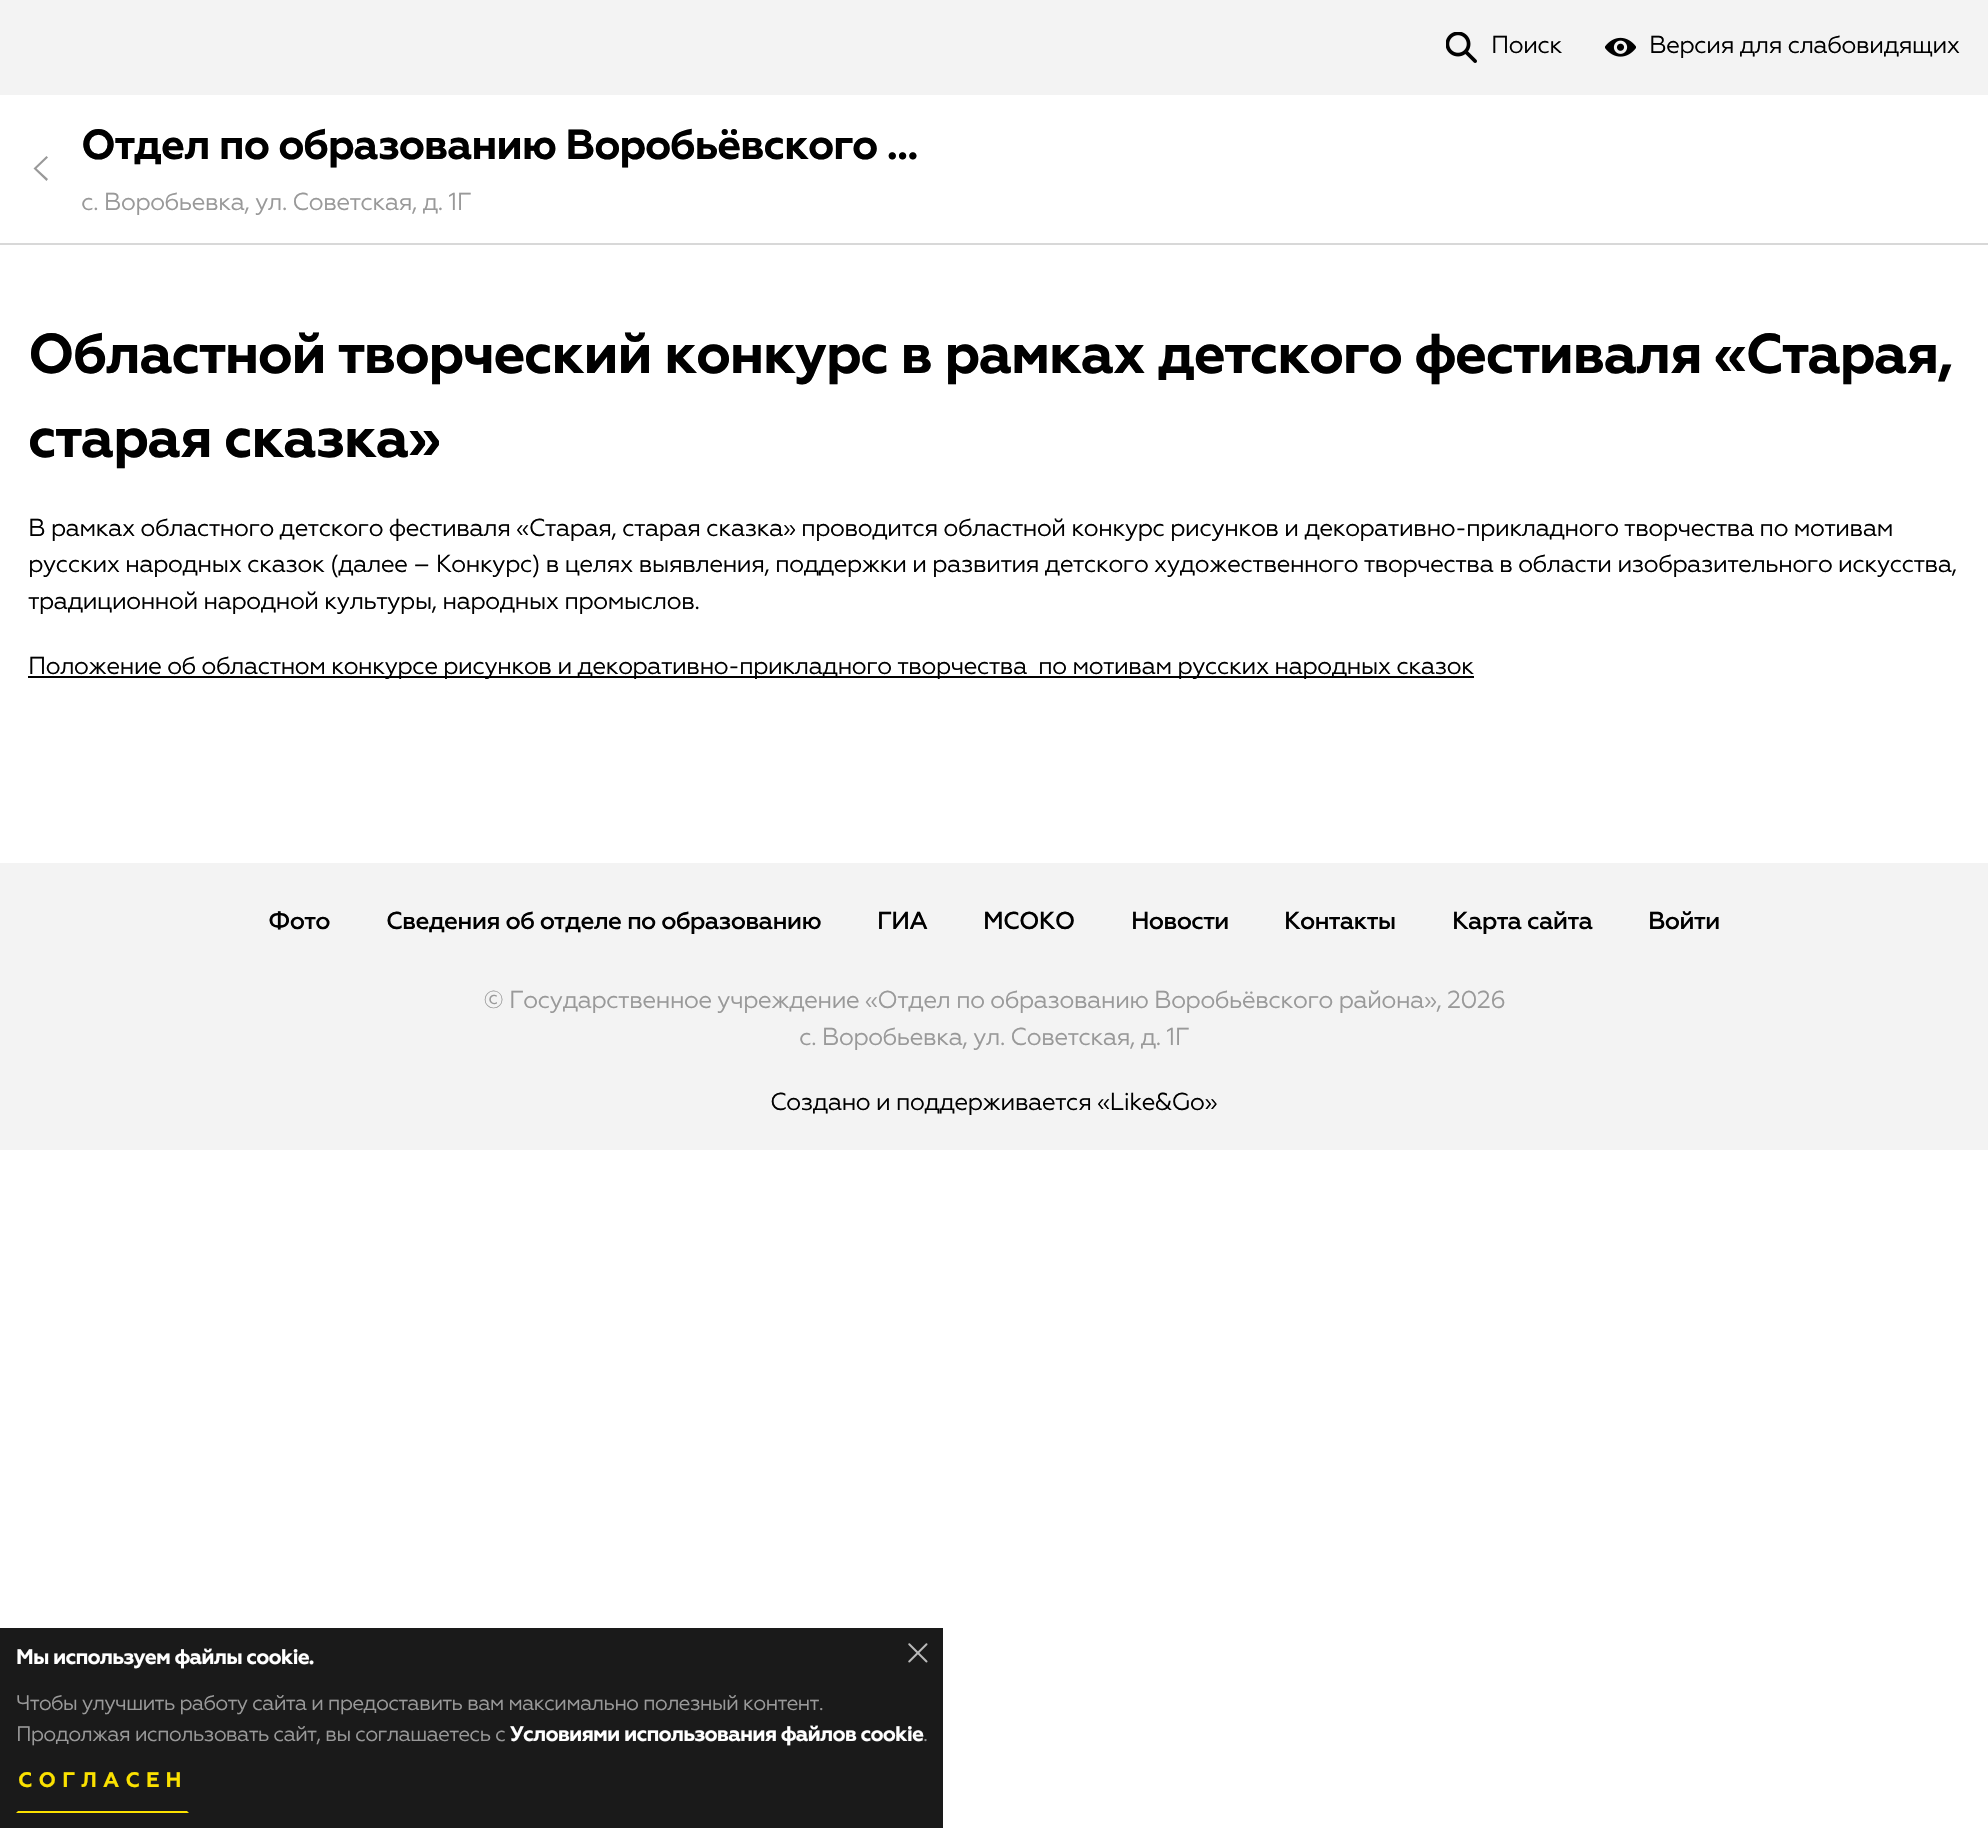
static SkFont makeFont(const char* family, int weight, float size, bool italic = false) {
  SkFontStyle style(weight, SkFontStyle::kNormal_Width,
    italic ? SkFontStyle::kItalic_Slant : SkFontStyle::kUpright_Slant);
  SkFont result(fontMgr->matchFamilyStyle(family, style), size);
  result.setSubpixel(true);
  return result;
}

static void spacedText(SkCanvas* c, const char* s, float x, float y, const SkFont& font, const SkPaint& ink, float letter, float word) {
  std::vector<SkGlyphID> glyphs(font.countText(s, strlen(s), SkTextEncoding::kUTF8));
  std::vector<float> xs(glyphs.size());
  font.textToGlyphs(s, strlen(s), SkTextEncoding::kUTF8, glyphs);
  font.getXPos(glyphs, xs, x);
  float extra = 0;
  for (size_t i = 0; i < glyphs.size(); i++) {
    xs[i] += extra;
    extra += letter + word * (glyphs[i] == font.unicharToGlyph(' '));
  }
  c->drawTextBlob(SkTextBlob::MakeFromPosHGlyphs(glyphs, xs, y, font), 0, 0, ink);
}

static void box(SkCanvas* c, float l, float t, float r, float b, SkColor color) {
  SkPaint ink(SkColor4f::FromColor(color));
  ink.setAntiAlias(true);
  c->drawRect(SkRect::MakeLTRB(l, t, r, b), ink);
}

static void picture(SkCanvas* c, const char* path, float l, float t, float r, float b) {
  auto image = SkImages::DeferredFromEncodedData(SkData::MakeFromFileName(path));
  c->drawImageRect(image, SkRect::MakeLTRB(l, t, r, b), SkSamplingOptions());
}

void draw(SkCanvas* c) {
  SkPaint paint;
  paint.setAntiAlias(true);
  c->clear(0xffffffff);
  box(c, 0, 0, 1988, 95, 0xfff3f3f3);
  picture(c, "img_01.png", 1446, 32, 1477, 63);
  SkFont face1 = makeFont("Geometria", 400, 24.5f);
  paint.setColor(0xff000000);
  spacedText(c, "Поиск", 1491, 53, face1, paint, -0.79f, 0);
  picture(c, "img_02.png", 1605, 37, 1636, 57);
  spacedText(c, "Версия для слабовидящих", 1649, 53, face1, paint, -0.79f, 0);
  box(c, 0, 243, 1988, 245, 0xffd8d8d8);
  paint.setColor(0xff999999);
  c->drawPath(SkPathBuilder().moveTo(48, 157.5f).lineTo(46.5f, 156).lineTo(33.5f, 168.5f).lineTo(46.5f, 181).lineTo(48, 179).lineTo(36.5f, 168.5f).close().detach(), paint);
  SkFont face2 = makeFont("Geometria", 700, 42);
  paint.setColor(0xff000000);
  spacedText(c, "Отдел по образованию Воробьёвского …", 81, 159, face2, paint, -1.2f, 0);
  paint.setColor(0xff999999);
  spacedText(c, "с. Воробьевка, ул. Советская, д. 1Г", 81, 210, face1, paint, -0.79f, 0);
  SkFont face3 = makeFont("Geometria", 700, 56);
  paint.setColor(0xff000000);
  spacedText(c, "Областной творческий конкурс в рамках детского фестиваля «Старая,", 28, 373, face3, paint, -1.57f, 0);
  spacedText(c, "старая сказка»", 28, 457, face3, paint, -1.57f, 0);
  spacedText(c, "В рамках областного детского фестиваля «Старая, старая сказка» проводится областной конкурс рисунков и декоративно-прикладного творчества по мотивам", 28, 536, face1, paint, -0.79f, 0);
  spacedText(c, "русских народных сказок (далее – Конкурс) в целях выявления, поддержки и развития детского художественного творчества в области изобразительного искусства,", 28, 572, face1, paint, -0.79f, 0);
  spacedText(c, "традиционной народной культуры, народных промыслов.", 28, 609, face1, paint, -0.79f, 0);
  box(c, 28, 676, 1474, 678, 0xff000000);
  spacedText(c, "Положение об областном конкурсе рисунков и декоративно-прикладного творчества  по мотивам русских народных сказок", 28, 674, face1, paint, -0.79f, 0);
  box(c, 0, 863, 1988, 1150, 0xfff3f3f3);
  SkFont face4 = makeFont("Geometria", 500, 24.5f);
  spacedText(c, "Фото", 268, 929, face4, paint, -0.79f, 0);
  spacedText(c, "Сведения об отделе по образованию", 386, 929, face4, paint, -0.79f, 0);
  spacedText(c, "ГИА", 877, 929, face4, paint, -0.79f, 0);
  spacedText(c, "МСОКО", 983, 929, face4, paint, -0.79f, 0);
  spacedText(c, "Новости", 1131, 929, face4, paint, -0.79f, 0);
  spacedText(c, "Контакты", 1284, 929, face4, paint, -0.79f, 0);
  spacedText(c, "Карта сайта", 1452, 929, face4, paint, -0.79f, 0);
  spacedText(c, "Войти", 1648, 929, face4, paint, -0.79f, 0);
  paint.setColor(0xff999999);
  spacedText(c, "© Государственное учреждение «Отдел по образованию Воробьёвского района», 2026", 483, 1008, face1, paint, -0.79f, 0);
  spacedText(c, "с. Воробьевка, ул. Советская, д. 1Г", 799, 1045, face1, paint, -0.79f, 0);
  paint.setColor(0xff000000);
  spacedText(c, "Создано и поддерживается «Like&Go»", 770, 1110, face1, paint, -0.79f, 0);
  box(c, 0, 1628, 943, 1828, 0xff1a1a1a);
  SkFont face5 = makeFont("Geometria", 700, 21);
  paint.setColor(0xffffffff);
  spacedText(c, "Мы используем файлы cookie.", 16, 1664, face5, paint, -0.88f, 0);
  picture(c, "img_03.png", 908, 1643, 928, 1663);
  SkFont face6 = makeFont("Geometria", 400, 21);
  paint.setColor(0xff999999);
  spacedText(c, "Чтобы улучшить работу сайта и предоставить вам максимально полезный контент.", 16, 1710, face6, paint, -0.88f, 0);
  spacedText(c, "Продолжая использовать сайт, вы соглашаетесь с", 16, 1741, face6, paint, -0.88f, 0);
  paint.setColor(0xffffffff);
  spacedText(c, "Условиями использования файлов cookie", 510, 1741, face5, paint, -0.88f, 0);
  paint.setColor(0xff999999);
  spacedText(c, ".", 923, 1741, face6, paint, -0.88f, 0);
  paint.setColor(0xfffbe100);
  c->drawPath(SkPathBuilder().moveTo(189, 1813).lineTo(16, 1813).lineTo(18, 1811).lineTo(187, 1811).close().detach(), paint);
  spacedText(c, "СОГЛАСЕН", 18, 1787, face5, paint, 6.25f, 0);
}
